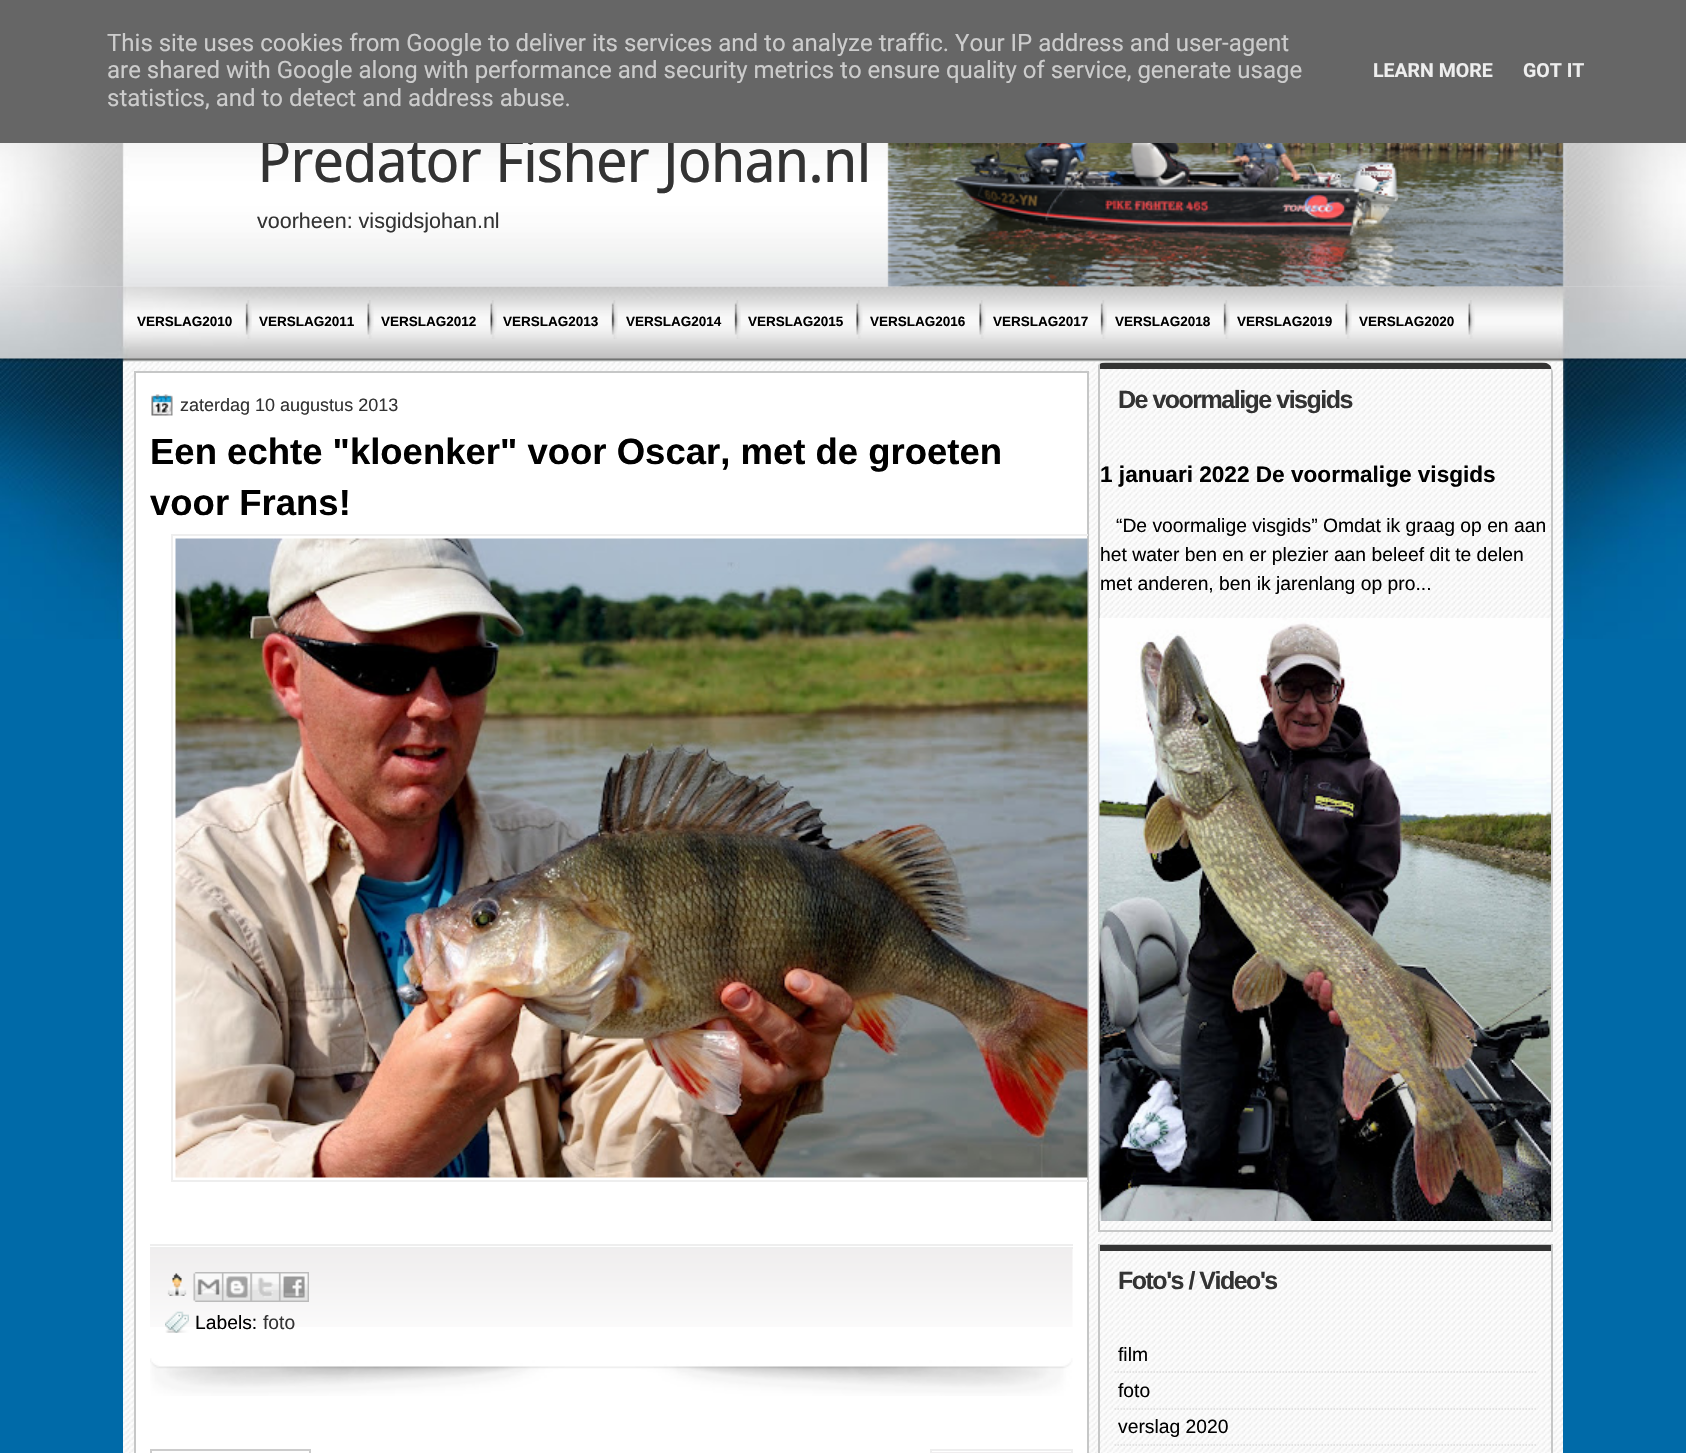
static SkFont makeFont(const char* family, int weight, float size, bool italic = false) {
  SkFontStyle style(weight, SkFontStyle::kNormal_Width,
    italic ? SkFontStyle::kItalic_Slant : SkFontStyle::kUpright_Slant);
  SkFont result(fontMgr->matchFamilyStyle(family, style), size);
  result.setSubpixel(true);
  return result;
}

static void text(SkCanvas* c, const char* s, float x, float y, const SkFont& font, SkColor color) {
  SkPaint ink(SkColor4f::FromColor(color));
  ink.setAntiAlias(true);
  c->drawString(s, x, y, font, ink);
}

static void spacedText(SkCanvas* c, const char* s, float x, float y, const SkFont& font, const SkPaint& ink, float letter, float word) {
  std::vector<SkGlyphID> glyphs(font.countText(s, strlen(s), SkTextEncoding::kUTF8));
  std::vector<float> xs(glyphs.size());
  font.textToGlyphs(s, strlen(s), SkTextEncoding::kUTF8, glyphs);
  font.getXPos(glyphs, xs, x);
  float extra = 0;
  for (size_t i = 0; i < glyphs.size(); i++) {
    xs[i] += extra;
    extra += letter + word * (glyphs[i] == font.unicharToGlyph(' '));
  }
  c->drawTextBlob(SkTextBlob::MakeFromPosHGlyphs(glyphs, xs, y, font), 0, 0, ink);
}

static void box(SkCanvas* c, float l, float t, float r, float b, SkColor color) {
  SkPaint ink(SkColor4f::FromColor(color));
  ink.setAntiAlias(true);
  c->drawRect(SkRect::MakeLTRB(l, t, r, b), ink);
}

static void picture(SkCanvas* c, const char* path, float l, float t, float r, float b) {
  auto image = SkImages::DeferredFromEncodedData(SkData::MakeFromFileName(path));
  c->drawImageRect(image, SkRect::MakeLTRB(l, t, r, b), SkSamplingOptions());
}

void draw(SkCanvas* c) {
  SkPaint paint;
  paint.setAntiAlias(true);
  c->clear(0xff006aa8);
  picture(c, "img_01.png", 0, 286, 1686, 287);
  picture(c, "img_02.png", 0, 286, 1686, 639);
  picture(c, "img_03.png", 0, 143, 1686, 287);
  SkFont face1 = makeFont("Droid Sans", 400, 59.8f);
  paint.setColor(0xff333333);
  spacedText(c, "Predator Fisher Johan.nl", 257, 182, face1, paint, -1.5f, 0);
  box(c, 0, 0, 1686, 143, 0xff666666);
  SkFont face2 = makeFont("Roboto", 400, 24);
  text(c, "This site uses cookies from Google to deliver its services and to analyze traffic. Your IP address and user-agent", 107, 51, face2, 0xffcccccc);
  text(c, "are shared with Google along with performance and security metrics to ensure quality of service, generate usage", 107, 78, face2, 0xffcccccc);
  text(c, "statistics, and to detect and address abuse.", 107, 106, face2, 0xffcccccc);
  SkFont face3 = makeFont("Roboto", 700, 19.5f);
  text(c, "LEARN MORE", 1373, 77, face3, 0xffeeeeee);
  text(c, "GOT IT", 1523, 77, face3, 0xffeeeeee);
  SkFont face4 = makeFont("Liberation Sans", 400, 21.5f);
  text(c, "voorheen: visgidsjohan.nl", 257, 228, face4, 0xff333333);
  picture(c, "img_04.png", 245, 300, 252, 339);
  SkFont face5 = makeFont("Liberation Sans", 700, 13.5f);
  text(c, "VERSLAG2010", 137, 326, face5, 0xff000000);
  picture(c, "img_05.png", 367, 300, 374, 339);
  text(c, "VERSLAG2011", 259, 326, face5, 0xff000000);
  picture(c, "img_05.png", 490, 300, 497, 339);
  text(c, "VERSLAG2012", 381, 326, face5, 0xff000000);
  picture(c, "img_06.png", 611, 300, 618, 339);
  text(c, "VERSLAG2013", 503, 326, face5, 0xff000000);
  picture(c, "img_06.png", 734, 300, 741, 339);
  text(c, "VERSLAG2014", 626, 326, face5, 0xff000000);
  picture(c, "img_07.png", 856, 300, 863, 339);
  text(c, "VERSLAG2015", 748, 326, face5, 0xff000000);
  picture(c, "img_07.png", 979, 300, 986, 339);
  text(c, "VERSLAG2016", 870, 326, face5, 0xff000000);
  picture(c, "img_08.png", 1100, 300, 1107, 339);
  text(c, "VERSLAG2017", 993, 326, face5, 0xff000000);
  picture(c, "img_08.png", 1223, 300, 1230, 339);
  text(c, "VERSLAG2018", 1115, 326, face5, 0xff000000);
  picture(c, "img_05.png", 1345, 300, 1352, 339);
  text(c, "VERSLAG2019", 1237, 326, face5, 0xff000000);
  picture(c, "img_05.png", 1468, 300, 1475, 339);
  text(c, "VERSLAG2020", 1359, 326, face5, 0xff000000);
  picture(c, "img_09.png", 123, 361, 1563, 1453);
  paint.setColor(0xffffffff);
  c->drawRect(SkRect::MakeLTRB(135, 372, 1088, 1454), paint);
  paint.setStyle(SkPaint::kStroke_Style);
  paint.setStrokeWidth(2);
  paint.setColor(0xffc6c7c7);
  c->drawRect(SkRect::MakeLTRB(135, 372, 1088, 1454), paint);
  picture(c, "img_10.png", 151, 394, 173, 416);
  SkFont face6 = makeFont("Liberation Sans", 400, 18);
  text(c, "zaterdag 10 augustus 2013", 180, 411, face6, 0xff333333);
  picture(c, "img_11.png", 150, 1358, 1073, 1396);
  SkFont face7 = makeFont("Liberation Sans", 700, 36.5f);
  text(c, "Een echte \"kloenker\" voor Oscar, met de groeten", 150, 464, face7, 0xff000000);
  text(c, "voor Frans!", 150, 515, face7, 0xff000000);
  c->save();
  c->clipRect(SkRect::MakeLTRB(135, 372, 1088, 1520));
  paint.setColor(0xffeeeeee);
  c->drawRect(SkRect::MakeLTRB(172, 535, 1139, 1181), paint);
  c->restore();
  picture(c, "img_12.png", 175, 538, 1088, 1178);
  picture(c, "img_13.png", 150, 1249, 1073, 1327);
  box(c, 150, 1244, 1073, 1246, 0xffeeeeee);
  box(c, 150, 1247, 1073, 1249, 0xffeeeeee);
  picture(c, "img_14.png", 167, 1273, 187, 1296);
  picture(c, "img_15.png", 193, 1272, 222, 1302);
  picture(c, "img_16.png", 222, 1272, 251, 1302);
  picture(c, "img_17.png", 250, 1272, 279, 1302);
  picture(c, "img_18.png", 279, 1272, 309, 1302);
  picture(c, "img_19.png", 165, 1311, 189, 1333);
  SkFont face8 = makeFont("Liberation Sans", 400, 19.3f);
  text(c, "Labels:", 195, 1329, face8, 0xff000000);
  text(c, "foto", 263, 1329, face8, 0xff333333);
  paint.setColor(0xffcccccc);
  c->drawRect(SkRect::MakeLTRB(151, 1450, 310, 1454), paint);
  picture(c, "img_20.png", 932, 1452, 1071, 1453);
  paint.setColor(0xffeeeeee);
  c->drawRect(SkRect::MakeLTRB(931, 1450, 1072, 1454), paint);
  paint.setStyle(SkPaint::kFill_Style);
  paint.setColor(0xffc6c7c7);
  c->drawPath(SkPathBuilder().moveTo(1100, 364).lineTo(1548, 364).cubicTo(1547, 363, 1544, 362, 1542, 362).lineTo(1106, 362).cubicTo(1103, 362, 1100, 363, 1098, 365).lineTo(1098, 1232).lineTo(1553, 1232).lineTo(1553, 373).cubicTo(1553, 371, 1552, 368, 1551, 367).lineTo(1551, 1230).lineTo(1100, 1230).close().detach(), paint);
  c->save();
  c->clipPath(SkPathBuilder().moveTo(1106, 362).lineTo(1542, 362).cubicTo(1548, 362, 1553, 367, 1553, 373).lineTo(1553, 1938).cubicTo(1553, 1944, 1548, 1949, 1542, 1949).lineTo(1106, 1949).cubicTo(1100, 1949, 1095, 1944, 1095, 1938).lineTo(1095, 373).cubicTo(1095, 367, 1100, 362, 1106, 362).close().detach(), true);
  box(c, 1100, 363, 1551, 369, 0xff333333);
  c->restore();
  SkFont face9 = makeFont("Liberation Sans", 700, 25);
  paint.setColor(0xff333333);
  spacedText(c, "De voormalige visgids", 1118, 408, face9, paint, -1.5f, 0);
  SkFont face10 = makeFont("Liberation Sans", 700, 22.6f);
  text(c, "1 januari 2022 De voormalige visgids", 1100, 482, face10, 0xff000000);
  text(c, "“De voormalige visgids” Omdat ik graag op en aan", 1116, 532, face8, 0xff000000);
  text(c, "het water ben en er plezier aan beleef dit te delen", 1100, 561, face8, 0xff000000);
  text(c, "met anderen, ben ik jarenlang op pro...", 1100, 590, face8, 0xff000000);
  picture(c, "img_21.png", 1099, 618, 1551, 1221);
  paint.setStyle(SkPaint::kStroke_Style);
  paint.setColor(0xffc6c7c7);
  c->drawRect(SkRect::MakeLTRB(1099, 1245, 1552, 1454), paint);
  box(c, 1100, 1245, 1551, 1251, 0xff333333);
  paint.setStyle(SkPaint::kFill_Style);
  paint.setColor(0xff333333);
  spacedText(c, "Foto's / Video's", 1118, 1289, face9, paint, -1.5f, 0);
  paint.setStyle(SkPaint::kStroke_Style);
  paint.setStrokeWidth(1.5f);
  paint.setColor(0xffdddddd);
  paint.setPathEffect(SkDashPathEffect::Make({{1.5f, 1.5f}}, 0));
  c->drawPath(SkPathBuilder().moveTo(1114.5f, 1372).lineTo(1536, 1372).detach(), paint);
  paint.setPathEffect(nullptr);
  text(c, "film", 1118, 1361, face8, 0xff000000);
  paint.setPathEffect(SkDashPathEffect::Make({{1.5f, 1.5f}}, 0));
  c->drawPath(SkPathBuilder().moveTo(1114.5f, 1409).lineTo(1536, 1409).detach(), paint);
  paint.setPathEffect(nullptr);
  text(c, "foto", 1118, 1397, face8, 0xff000000);
  paint.setPathEffect(SkDashPathEffect::Make({{1.5f, 1.5f}}, 0));
  c->drawPath(SkPathBuilder().moveTo(1114.5f, 1445).lineTo(1536, 1445).detach(), paint);
  paint.setPathEffect(nullptr);
  text(c, "verslag 2020", 1118, 1433, face8, 0xff000000);
}
